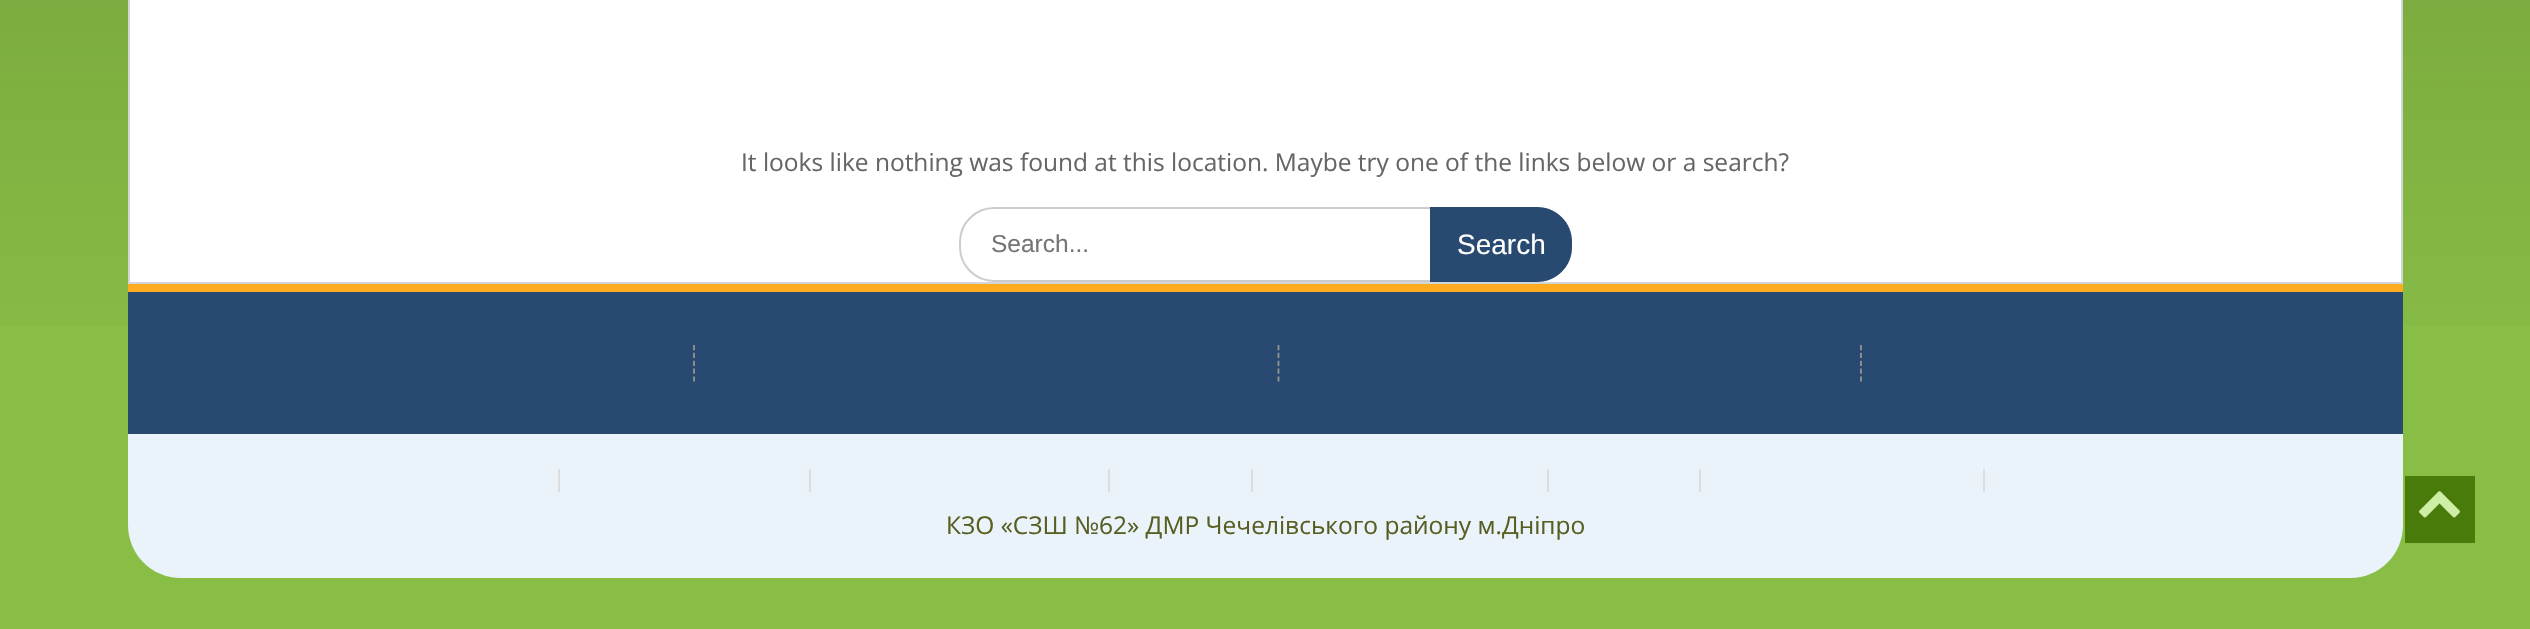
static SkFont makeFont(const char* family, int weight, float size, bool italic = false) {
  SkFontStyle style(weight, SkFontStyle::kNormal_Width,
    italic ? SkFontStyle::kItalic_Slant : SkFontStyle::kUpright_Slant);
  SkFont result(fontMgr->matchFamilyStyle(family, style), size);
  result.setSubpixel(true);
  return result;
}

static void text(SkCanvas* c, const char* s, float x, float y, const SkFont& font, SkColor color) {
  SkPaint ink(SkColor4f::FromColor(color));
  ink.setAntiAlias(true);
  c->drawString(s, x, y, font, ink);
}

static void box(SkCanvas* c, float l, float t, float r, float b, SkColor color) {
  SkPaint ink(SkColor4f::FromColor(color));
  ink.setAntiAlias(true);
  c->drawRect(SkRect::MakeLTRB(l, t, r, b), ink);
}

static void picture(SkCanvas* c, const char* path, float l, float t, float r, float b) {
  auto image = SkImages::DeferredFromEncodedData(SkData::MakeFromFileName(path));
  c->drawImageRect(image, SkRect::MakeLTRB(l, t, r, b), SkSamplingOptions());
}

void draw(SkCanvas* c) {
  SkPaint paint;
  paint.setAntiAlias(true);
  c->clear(0xff88be46);
  picture(c, "img_01.png", 0, 0, 2530, 325);
  paint.setColor(0xffffffff);
  c->drawRect(SkRect::MakeLTRB(129, -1, 2402, 283), paint);
  paint.setStyle(SkPaint::kStroke_Style);
  paint.setStrokeWidth(2);
  paint.setColor(0xffd1d6da);
  c->drawRect(SkRect::MakeLTRB(129, -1, 2402, 283), paint);
  SkFont face1 = makeFont("Open Sans", 400, 24.5f);
  text(c, "It looks like nothing was found at this location. Maybe try one of the links below or a search?", 741, 171, face1, 0xff666666);
  paint.setColor(0xffcccccc);
  c->drawRoundRect(SkRect::MakeLTRB(960, 208, 1571, 281), 34, 34, paint);
  SkFont face2 = makeFont("Liberation Sans", 400, 24.5f);
  text(c, "Search...", 991, 252, face2, 0xff757575);
  paint.setStyle(SkPaint::kFill_Style);
  paint.setColor(0xff294a70);
  c->drawPath(SkPathBuilder().moveTo(1430, 207).lineTo(1537, 207).cubicTo(1556.5f, 207, 1572, 222.5f, 1572, 242).lineTo(1572, 247).cubicTo(1572, 266.5f, 1556.5f, 282, 1537, 282).lineTo(1430, 282).close().detach(), paint);
  SkFont face3 = makeFont("Liberation Sans", 400, 28);
  text(c, "Search", 1457, 254, face3, 0xffffffff);
  box(c, 128, 292, 2403, 434, 0xff294a70);
  box(c, 128, 284, 2403, 292, 0xffffab1f);
  paint.setStyle(SkPaint::kStroke_Style);
  paint.setStrokeWidth(1.8f);
  paint.setColor(0xff939393);
  paint.setPathEffect(SkDashPathEffect::Make({{5.25f, 2.62f}}, 0));
  c->drawPath(SkPathBuilder().moveTo(694, 345).lineTo(694, 381.5f).detach(), paint);
  paint.setPathEffect(nullptr);
  paint.setPathEffect(SkDashPathEffect::Make({{5.25f, 2.62f}}, 0));
  c->drawPath(SkPathBuilder().moveTo(1278.5f, 345).lineTo(1278.5f, 381.5f).detach(), paint);
  paint.setPathEffect(nullptr);
  paint.setPathEffect(SkDashPathEffect::Make({{5.25f, 2.62f}}, 0));
  c->drawPath(SkPathBuilder().moveTo(1861, 345).lineTo(1861, 381.5f).detach(), paint);
  paint.setPathEffect(nullptr);
  paint.setStyle(SkPaint::kFill_Style);
  paint.setColor(0xffeaf2fa);
  c->drawPath(SkPathBuilder().moveTo(128, 434).lineTo(2403, 434).lineTo(2403, 525).cubicTo(2403, 554.5f, 2379.5f, 578, 2350, 578).lineTo(181, 578).cubicTo(151.5f, 578, 128, 554.5f, 128, 525).close().detach(), paint);
  box(c, 558, 469, 560, 492, 0xffdddddd);
  box(c, 809, 469, 811, 492, 0xffdddddd);
  box(c, 1108, 469, 1110, 492, 0xffdddddd);
  box(c, 1251, 469, 1253, 492, 0xffdddddd);
  box(c, 1547, 469, 1549, 492, 0xffdddddd);
  box(c, 1699, 469, 1701, 492, 0xffdddddd);
  box(c, 1983, 469, 1985, 492, 0xffdddddd);
  text(c, "КЗО «СЗШ №62» ДМР Чечелівського району м.Дніпро", 946, 534, face1, 0xff585e22);
  box(c, 2405, 476, 2475, 543, 0xff487b0a);
  picture(c, "img_02.png", 2419, 491, 2460, 518);
}
